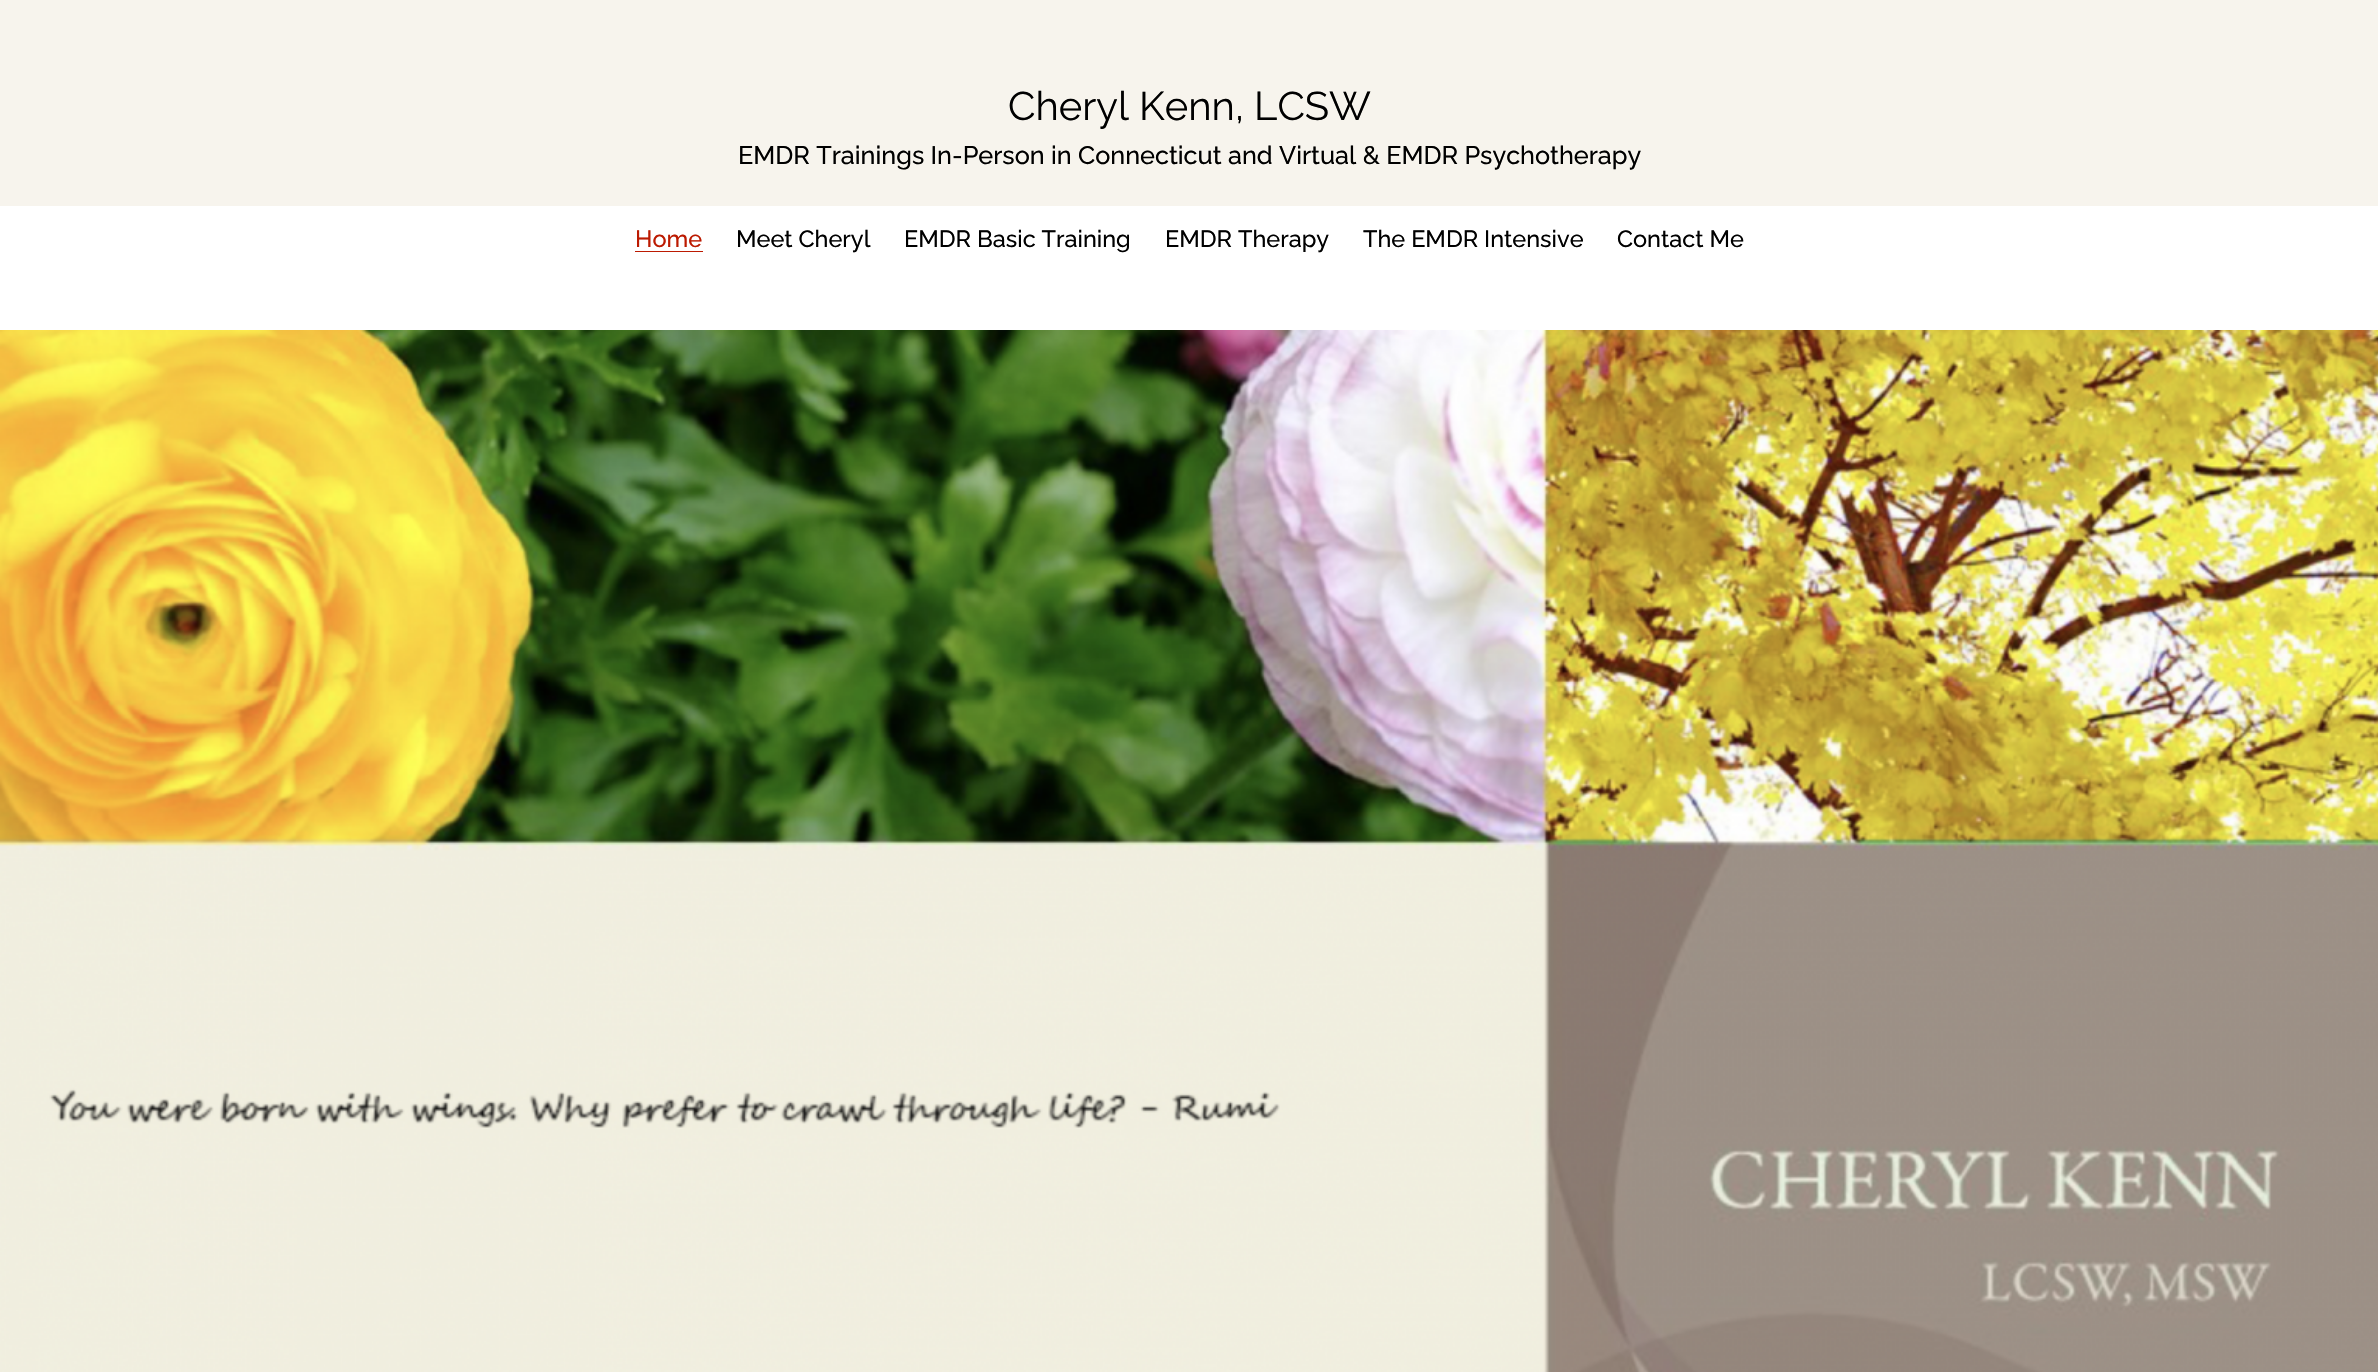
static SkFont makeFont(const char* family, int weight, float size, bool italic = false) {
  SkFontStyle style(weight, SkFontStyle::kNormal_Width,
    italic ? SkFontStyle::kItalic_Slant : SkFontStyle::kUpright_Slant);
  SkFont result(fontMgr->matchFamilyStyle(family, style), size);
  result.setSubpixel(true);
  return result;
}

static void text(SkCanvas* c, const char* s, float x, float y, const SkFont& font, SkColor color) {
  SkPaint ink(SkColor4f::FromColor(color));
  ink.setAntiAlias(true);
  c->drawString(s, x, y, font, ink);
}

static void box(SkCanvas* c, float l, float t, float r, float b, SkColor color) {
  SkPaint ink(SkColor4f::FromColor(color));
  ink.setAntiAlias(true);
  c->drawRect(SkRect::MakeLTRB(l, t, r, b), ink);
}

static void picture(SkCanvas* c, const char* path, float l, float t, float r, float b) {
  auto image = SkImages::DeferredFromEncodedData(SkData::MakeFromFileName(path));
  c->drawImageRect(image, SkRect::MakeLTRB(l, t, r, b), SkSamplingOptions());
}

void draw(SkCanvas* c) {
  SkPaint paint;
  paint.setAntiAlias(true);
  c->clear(0xffffffff);
  box(c, 0, 0, 2378, 206, 0xfff7f4ed);
  SkFont face1 = makeFont("Raleway", 400, 40);
  text(c, "Cheryl Kenn, LCSW", 1008, 120, face1, 0xff000000);
  SkFont face2 = makeFont("Raleway", 500, 25.2f);
  text(c, "EMDR Trainings In-Person in Connecticut and Virtual & EMDR Psychotherapy", 738, 164, face2, 0xff000000);
  SkFont face3 = makeFont("Raleway", 500, 23.5f);
  text(c, "Home", 635, 247, face3, 0xffbc1a01);
  box(c, 635, 251, 703, 252, 0xffbc1a01);
  text(c, "Meet Cheryl", 736, 247, face3, 0xff000000);
  text(c, "EMDR Basic Training", 904, 247, face3, 0xff000000);
  text(c, "EMDR Therapy", 1165, 247, face3, 0xff000000);
  text(c, "The EMDR Intensive", 1363, 247, face3, 0xff000000);
  text(c, "Contact Me", 1617, 247, face3, 0xff000000);
  picture(c, "img_01.png", 0, 330, 2378, 1372);
}
